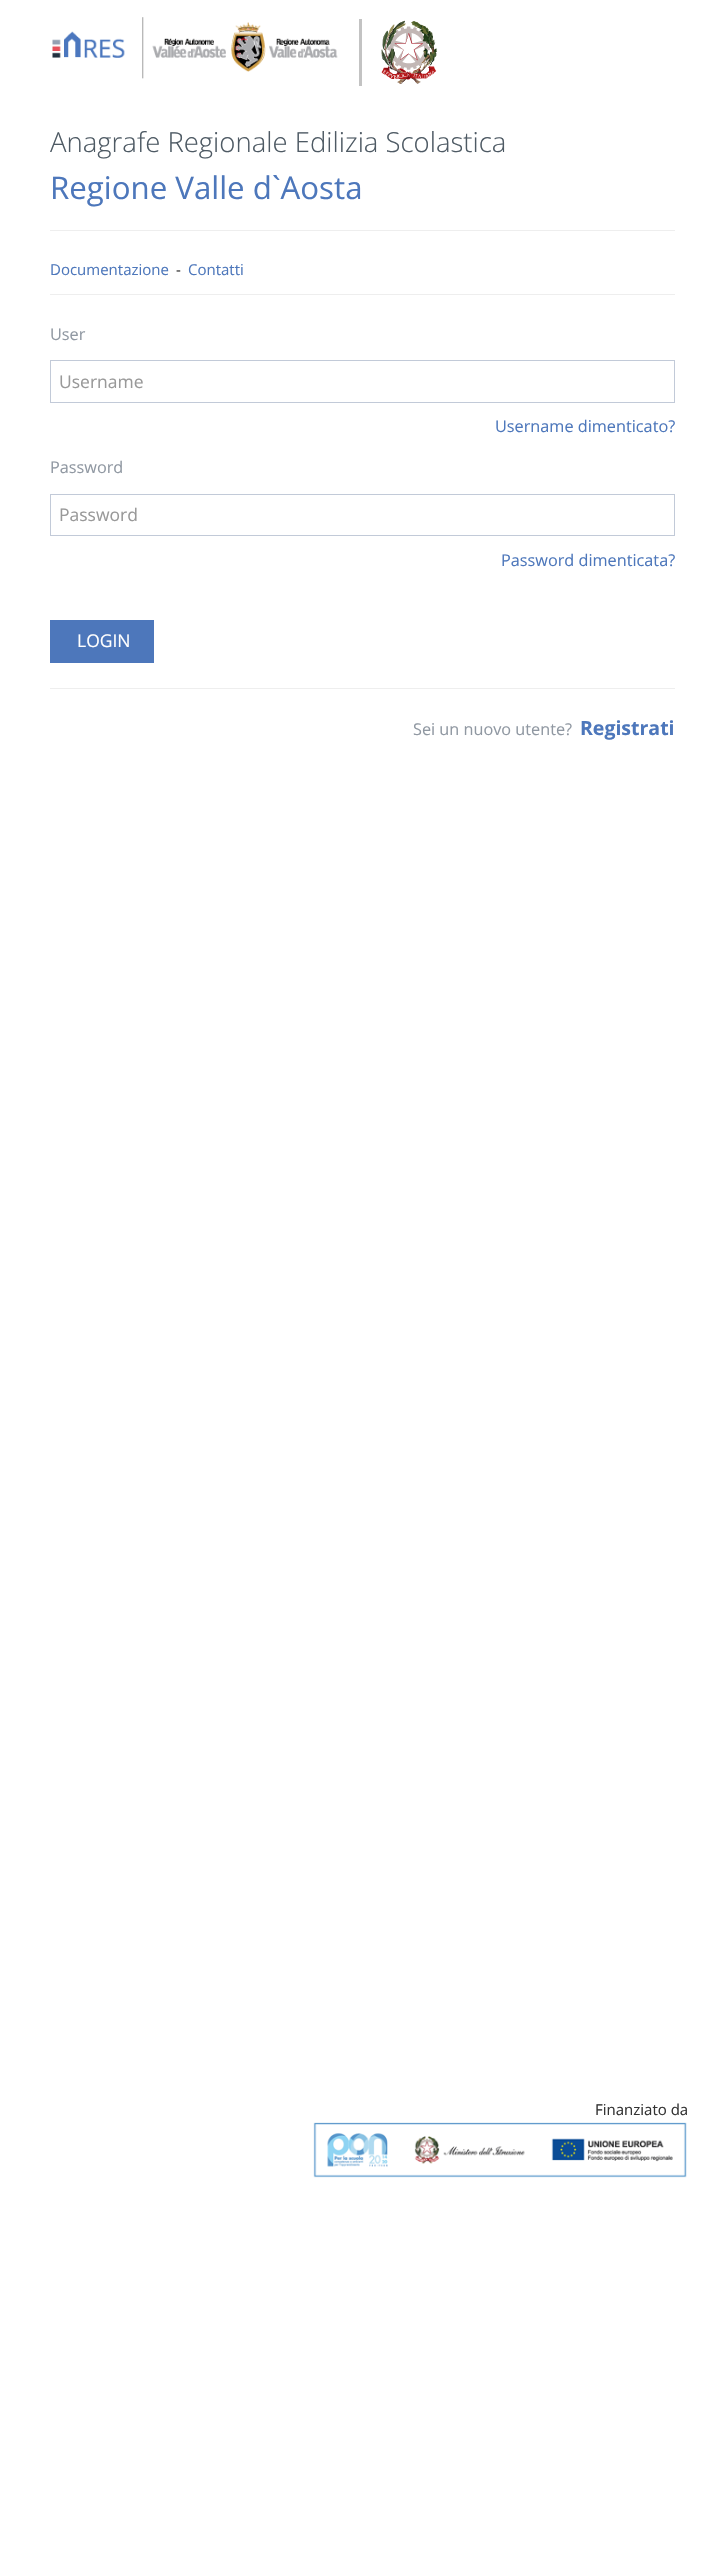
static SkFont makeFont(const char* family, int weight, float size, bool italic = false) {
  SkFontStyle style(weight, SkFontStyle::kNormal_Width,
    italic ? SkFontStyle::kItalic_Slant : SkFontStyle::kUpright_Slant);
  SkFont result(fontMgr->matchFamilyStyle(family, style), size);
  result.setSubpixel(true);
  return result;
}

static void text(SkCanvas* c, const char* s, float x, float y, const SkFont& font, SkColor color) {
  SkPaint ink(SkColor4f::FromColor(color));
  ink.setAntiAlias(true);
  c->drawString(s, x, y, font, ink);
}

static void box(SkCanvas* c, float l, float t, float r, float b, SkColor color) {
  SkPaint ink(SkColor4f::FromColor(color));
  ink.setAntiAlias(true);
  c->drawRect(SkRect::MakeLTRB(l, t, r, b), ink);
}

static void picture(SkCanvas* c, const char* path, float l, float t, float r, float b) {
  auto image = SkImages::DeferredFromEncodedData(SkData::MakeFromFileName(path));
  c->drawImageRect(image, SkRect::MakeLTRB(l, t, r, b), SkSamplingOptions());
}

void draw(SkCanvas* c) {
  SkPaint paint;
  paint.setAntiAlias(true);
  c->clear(0xffffffff);
  picture(c, "img_01.png", 52, 17, 338, 79);
  box(c, 359, 19, 362, 86, 0xffc3c3c3);
  picture(c, "img_02.png", 381, 20, 437, 84);
  SkFont face1 = makeFont("Open Sans", 300, 27.5f);
  text(c, "Anagrafe Regionale Edilizia Scolastica", 50, 152, face1, 0xff4e5a64);
  SkFont face2 = makeFont("Open Sans", 400, 31.25f);
  text(c, "Regione Valle d`Aosta", 50, 199, face2, 0xff4d77bb);
  box(c, 50, 230, 675, 231, 0xffeeeeee);
  SkFont face3 = makeFont("Open Sans", 400, 15);
  text(c, "Documentazione", 50, 275, face3, 0xff4d77bb);
  text(c, "-", 176, 275, face3, 0xff333333);
  text(c, "Contatti", 188, 275, face3, 0xff4d77bb);
  box(c, 50, 294, 675, 295, 0xffeeeeee);
  SkFont face4 = makeFont("Open Sans", 400, 16.25f);
  text(c, "User", 50, 340, face4, 0xff9098a2);
  paint.setStyle(SkPaint::kStroke_Style);
  paint.setStrokeWidth(1);
  paint.setColor(0xffc2cad8);
  c->drawRect(SkRect::MakeLTRB(50.5f, 360.5f, 674.5f, 402.5f), paint);
  SkFont face5 = makeFont("Open Sans", 400, 17.5f);
  text(c, "Username", 59, 388, face5, 0xff999999);
  text(c, "Username dimenticato?", 495, 432, face4, 0xff4d77bb);
  text(c, "Password", 50, 473, face4, 0xff9098a2);
  c->drawRect(SkRect::MakeLTRB(50.5f, 494.5f, 674.5f, 535.5f), paint);
  text(c, "Password", 59, 521, face5, 0xff999999);
  text(c, "Password dimenticata?", 501, 566, face4, 0xff4d77bb);
  box(c, 50, 620, 154, 663, 0xff4d77bb);
  text(c, "LOGIN", 77, 647, face5, 0xffffffff);
  box(c, 50, 688, 675, 689, 0xffeeeeee);
  text(c, "Sei un nuovo utente?", 413, 735, face4, 0xff9098a2);
  SkFont face6 = makeFont("Open Sans", 700, 19.5f);
  text(c, "Registrati", 580, 735, face6, 0xff4d77bb);
  text(c, "Finanziato da", 595, 2115, face3, 0xff333333);
  picture(c, "img_03.png", 313, 2122, 687, 2178);
}
